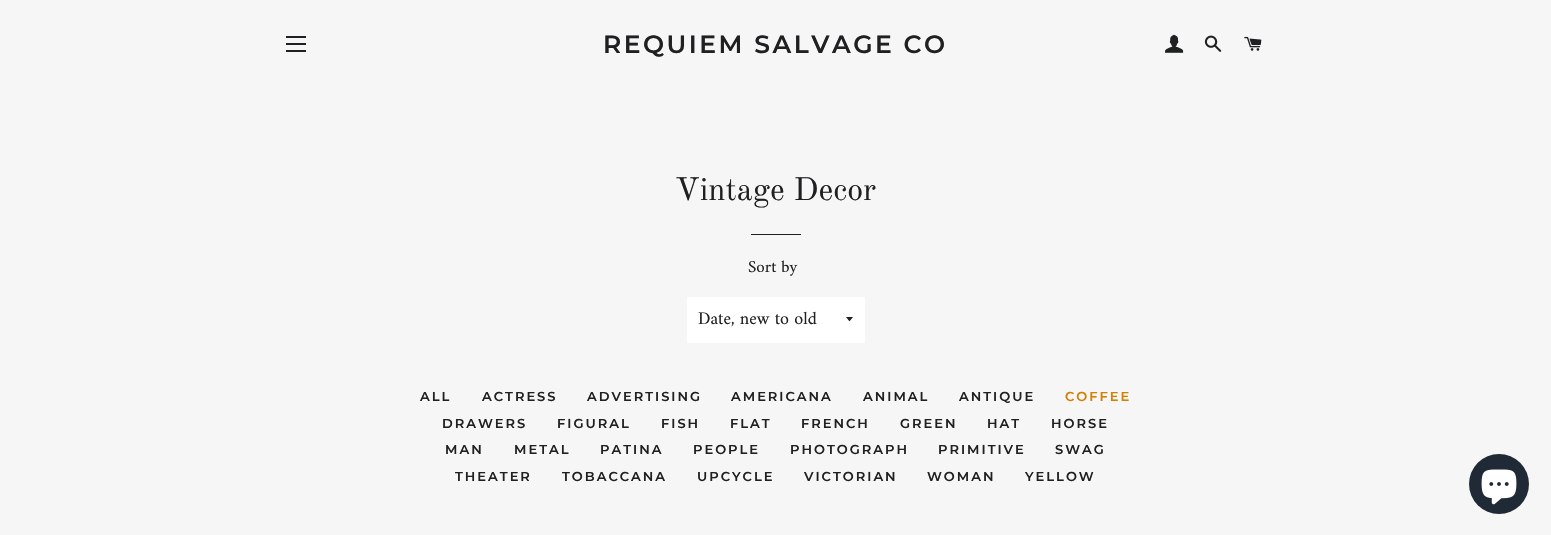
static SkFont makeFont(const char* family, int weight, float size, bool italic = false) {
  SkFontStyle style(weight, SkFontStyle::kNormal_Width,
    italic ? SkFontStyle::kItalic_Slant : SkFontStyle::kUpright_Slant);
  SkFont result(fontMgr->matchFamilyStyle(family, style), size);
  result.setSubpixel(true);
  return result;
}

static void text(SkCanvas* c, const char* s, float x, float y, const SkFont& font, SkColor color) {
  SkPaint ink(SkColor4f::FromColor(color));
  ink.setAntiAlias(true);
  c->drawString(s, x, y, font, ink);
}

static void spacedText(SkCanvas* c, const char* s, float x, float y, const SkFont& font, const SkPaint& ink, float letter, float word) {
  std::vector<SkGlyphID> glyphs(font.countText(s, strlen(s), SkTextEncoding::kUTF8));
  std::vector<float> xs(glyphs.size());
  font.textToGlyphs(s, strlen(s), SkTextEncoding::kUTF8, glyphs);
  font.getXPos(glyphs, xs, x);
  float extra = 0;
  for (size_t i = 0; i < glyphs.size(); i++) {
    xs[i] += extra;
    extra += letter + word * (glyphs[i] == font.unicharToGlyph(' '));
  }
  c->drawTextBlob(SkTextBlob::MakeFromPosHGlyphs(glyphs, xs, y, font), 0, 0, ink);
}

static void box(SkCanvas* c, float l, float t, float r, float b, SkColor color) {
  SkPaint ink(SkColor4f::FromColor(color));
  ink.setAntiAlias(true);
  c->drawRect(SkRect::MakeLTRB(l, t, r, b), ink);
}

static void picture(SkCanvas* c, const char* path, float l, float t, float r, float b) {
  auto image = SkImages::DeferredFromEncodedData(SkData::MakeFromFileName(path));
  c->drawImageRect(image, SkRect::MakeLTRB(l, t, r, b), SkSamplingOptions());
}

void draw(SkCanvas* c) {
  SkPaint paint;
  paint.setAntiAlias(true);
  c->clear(0xfff6f6f6);
  box(c, 286, 36, 306, 38, 0xff1f2021);
  box(c, 286, 43, 306, 45, 0xff1f2021);
  box(c, 286, 50, 306, 52, 0xff1f2021);
  SkFont face1 = makeFont("Montserrat", 600, 25);
  paint.setColor(0xff1f2021);
  spacedText(c, "REQUIEM SALVAGE CO", 603, 53, face1, paint, 2.5f, 0);
  picture(c, "img_01.png", 1165, 34, 1184, 53);
  picture(c, "img_02.png", 1204, 35, 1222, 52);
  picture(c, "img_03.png", 1244, 36, 1262, 51);
  SkFont face2 = makeFont("Old Standard TT", 400, 32);
  text(c, "Vintage Decor", 675, 200, face2, 0xff1f2021);
  box(c, 751, 234, 801, 235, 0xff1f2021);
  SkFont face3 = makeFont("Amiri", 400, 17);
  text(c, "Sort by", 748, 272, face3, 0xff1f2021);
  box(c, 687, 297, 865, 343, 0xffffffff);
  c->drawPath(SkPathBuilder().moveTo(846, 317).cubicTo(850.5f, 322.5f, 848.5f, 322.5f, 853, 317).close().detach(), paint);
  SkFont face4 = makeFont("Amiri", 400, 18);
  text(c, "Date, new to old", 698, 324, face4, 0xff1f2021);
  SkFont face5 = makeFont("Montserrat", 600, 13);
  spacedText(c, "ALL", 420, 401, face5, paint, 2, 0);
  spacedText(c, "ACTRESS", 482, 401, face5, paint, 2, 0);
  spacedText(c, "ADVERTISING", 587, 401, face5, paint, 2, 0);
  spacedText(c, "AMERICANA", 731, 401, face5, paint, 2, 0);
  spacedText(c, "ANIMAL", 863, 401, face5, paint, 2, 0);
  spacedText(c, "ANTIQUE", 959, 401, face5, paint, 2, 0);
  paint.setColor(0xffd18100);
  spacedText(c, "COFFEE", 1065, 401, face5, paint, 2, 0);
  paint.setColor(0xff1f2021);
  spacedText(c, "DRAWERS", 442, 428, face5, paint, 2, 0);
  spacedText(c, "FIGURAL", 557, 428, face5, paint, 2, 0);
  spacedText(c, "FISH", 661, 428, face5, paint, 2, 0);
  spacedText(c, "FLAT", 730, 428, face5, paint, 2, 0);
  spacedText(c, "FRENCH", 801, 428, face5, paint, 2, 0);
  spacedText(c, "GREEN", 900, 428, face5, paint, 2, 0);
  spacedText(c, "HAT", 987, 428, face5, paint, 2, 0);
  spacedText(c, "HORSE", 1051, 428, face5, paint, 2, 0);
  spacedText(c, "MAN", 445, 454, face5, paint, 2, 0);
  spacedText(c, "METAL", 514, 454, face5, paint, 2, 0);
  spacedText(c, "PATINA", 600, 454, face5, paint, 2, 0);
  spacedText(c, "PEOPLE", 693, 454, face5, paint, 2, 0);
  spacedText(c, "PHOTOGRAPH", 790, 454, face5, paint, 2, 0);
  spacedText(c, "PRIMITIVE", 938, 454, face5, paint, 2, 0);
  spacedText(c, "SWAG", 1055, 454, face5, paint, 2, 0);
  spacedText(c, "THEATER", 455, 481, face5, paint, 2, 0);
  spacedText(c, "TOBACCANA", 562, 481, face5, paint, 2, 0);
  spacedText(c, "UPCYCLE", 697, 481, face5, paint, 2, 0);
  spacedText(c, "VICTORIAN", 804, 481, face5, paint, 2, 0);
  spacedText(c, "WOMAN", 927, 481, face5, paint, 2, 0);
  spacedText(c, "YELLOW", 1025, 481, face5, paint, 2, 0);
  paint.setColor(0xff202a36);
  c->drawCircle(1499, 484, 30, paint);
  picture(c, "img_04.png", 1481, 469, 1517, 505);
}
